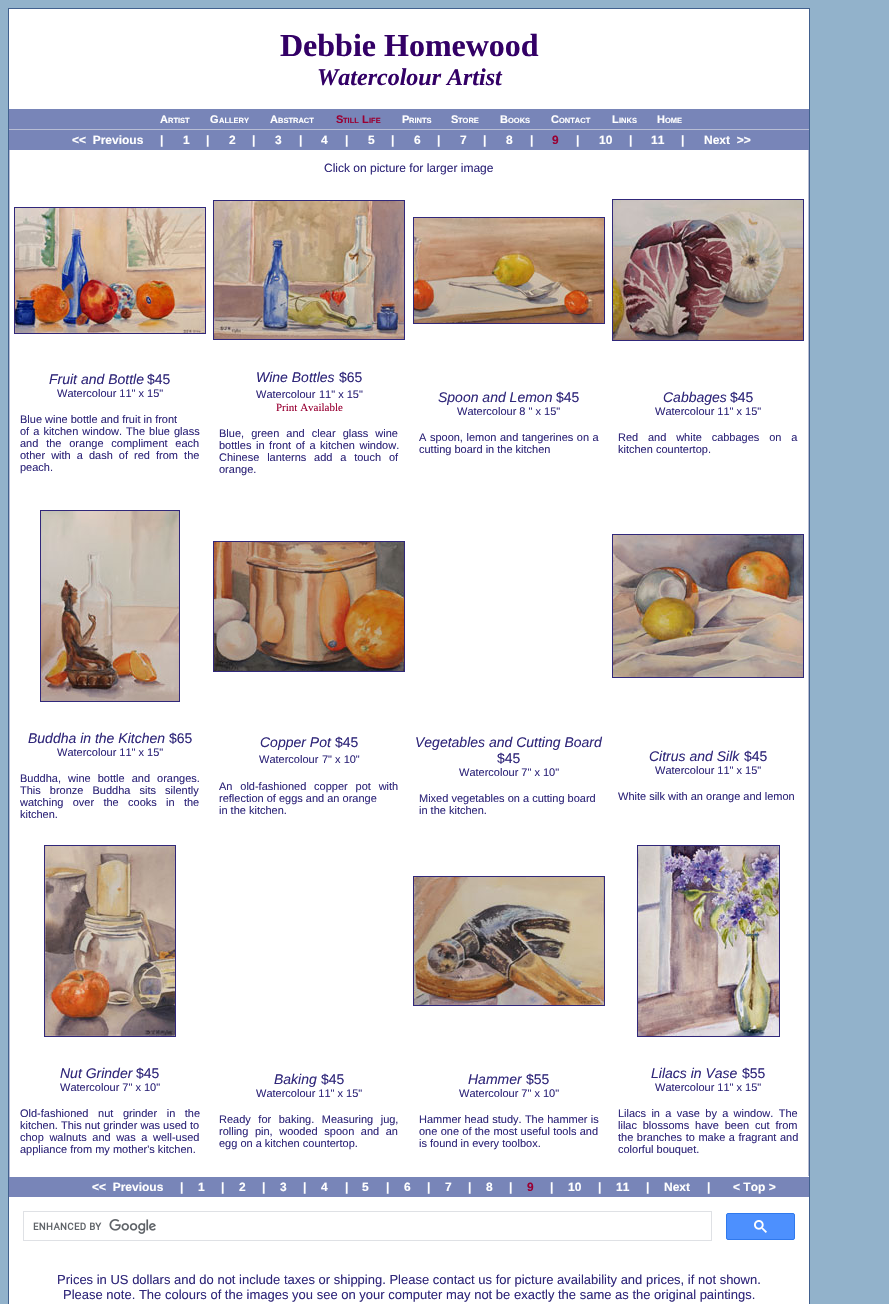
static SkFont makeFont(const char* family, int weight, float size, bool italic = false) {
  SkFontStyle style(weight, SkFontStyle::kNormal_Width,
    italic ? SkFontStyle::kItalic_Slant : SkFontStyle::kUpright_Slant);
  SkFont result(fontMgr->matchFamilyStyle(family, style), size);
  result.setSubpixel(true);
  return result;
}

static void text(SkCanvas* c, const char* s, float x, float y, const SkFont& font, SkColor color) {
  SkPaint ink(SkColor4f::FromColor(color));
  ink.setAntiAlias(true);
  c->drawString(s, x, y, font, ink);
}

static void spacedText(SkCanvas* c, const char* s, float x, float y, const SkFont& font, const SkPaint& ink, float letter, float word) {
  std::vector<SkGlyphID> glyphs(font.countText(s, strlen(s), SkTextEncoding::kUTF8));
  std::vector<float> xs(glyphs.size());
  font.textToGlyphs(s, strlen(s), SkTextEncoding::kUTF8, glyphs);
  font.getXPos(glyphs, xs, x);
  float extra = 0;
  for (size_t i = 0; i < glyphs.size(); i++) {
    xs[i] += extra;
    extra += letter + word * (glyphs[i] == font.unicharToGlyph(' '));
  }
  c->drawTextBlob(SkTextBlob::MakeFromPosHGlyphs(glyphs, xs, y, font), 0, 0, ink);
}

static void box(SkCanvas* c, float l, float t, float r, float b, SkColor color) {
  SkPaint ink(SkColor4f::FromColor(color));
  ink.setAntiAlias(true);
  c->drawRect(SkRect::MakeLTRB(l, t, r, b), ink);
}

static void picture(SkCanvas* c, const char* path, float l, float t, float r, float b) {
  auto image = SkImages::DeferredFromEncodedData(SkData::MakeFromFileName(path));
  c->drawImageRect(image, SkRect::MakeLTRB(l, t, r, b), SkSamplingOptions());
}

void draw(SkCanvas* c) {
  SkPaint paint;
  paint.setAntiAlias(true);
  c->clear(0xff92b2cb);
  paint.setColor(0xffffffff);
  c->drawRect(SkRect::MakeLTRB(8.5f, 8.5f, 809.5f, 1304.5f), paint);
  paint.setStyle(SkPaint::kStroke_Style);
  paint.setStrokeWidth(1);
  paint.setColor(0xff41608e);
  c->drawRect(SkRect::MakeLTRB(8.5f, 8.5f, 809.5f, 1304.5f), paint);
  SkFont face1 = makeFont("Liberation Serif", 700, 32);
  text(c, "Debbie Homewood", 280, 56, face1, 0xff330066);
  SkFont face2 = makeFont("Liberation Serif", 700, 24, true);
  text(c, "Watercolour Artist", 317, 85, face2, 0xff330066);
  box(c, 9, 109, 809, 129, 0xff7885b8);
  SkFont face3 = makeFont("Liberation Sans", 700, 11);
  text(c, "A", 160, 123, face3, 0xffffffff);
  SkFont face4 = makeFont("Liberation Sans", 700, 7.5f);
  text(c, "RTIST", 168, 123, face4, 0xffffffff);
  text(c, "G", 210, 123, face3, 0xffffffff);
  text(c, "ALLERY", 219, 123, face4, 0xffffffff);
  text(c, "A", 270, 123, face3, 0xffffffff);
  text(c, "BSTRACT", 278, 123, face4, 0xffffffff);
  text(c, "S", 336, 123, face3, 0xff990033);
  text(c, "TILL", 343, 123, face4, 0xff990033);
  text(c, "L", 362, 123, face3, 0xff990033);
  text(c, "IFE", 369, 123, face4, 0xff990033);
  text(c, "P", 402, 123, face3, 0xffffffff);
  text(c, "RINTS", 409, 123, face4, 0xffffffff);
  text(c, "S", 451, 123, face3, 0xffffffff);
  text(c, "TORE", 458, 123, face4, 0xffffffff);
  text(c, "B", 500, 123, face3, 0xffffffff);
  text(c, "OOKS", 508, 123, face4, 0xffffffff);
  text(c, "C", 551, 123, face3, 0xffffffff);
  text(c, "ONTACT", 559, 123, face4, 0xffffffff);
  text(c, "L", 612, 123, face3, 0xffffffff);
  text(c, "INKS", 619, 123, face4, 0xffffffff);
  text(c, "H", 657, 123, face3, 0xffffffff);
  text(c, "OME", 665, 123, face4, 0xffffffff);
  box(c, 9, 130, 809, 150, 0xff7885b8);
  box(c, 9, 129, 809, 130, 0xffb8bdd4);
  SkFont face5 = makeFont("Liberation Sans", 700, 12);
  text(c, "<<  Previous", 72, 144, face5, 0xffffffff);
  text(c, "|", 160, 144, face5, 0xffffffff);
  text(c, "1", 183, 144, face5, 0xffffffff);
  text(c, "|", 206, 144, face5, 0xffffffff);
  text(c, "2", 229, 144, face5, 0xffffffff);
  text(c, "|", 252, 144, face5, 0xffffffff);
  text(c, "3", 275, 144, face5, 0xffffffff);
  text(c, "|", 299, 144, face5, 0xffffffff);
  text(c, "4", 321, 144, face5, 0xffffffff);
  text(c, "|", 345, 144, face5, 0xffffffff);
  text(c, "5", 368, 144, face5, 0xffffffff);
  text(c, "|", 391, 144, face5, 0xffffffff);
  text(c, "6", 414, 144, face5, 0xffffffff);
  text(c, "|", 437, 144, face5, 0xffffffff);
  text(c, "7", 460, 144, face5, 0xffffffff);
  text(c, "|", 483, 144, face5, 0xffffffff);
  text(c, "8", 506, 144, face5, 0xffffffff);
  text(c, "|", 530, 144, face5, 0xffffffff);
  text(c, "9", 552, 144, face5, 0xff990033);
  text(c, "|", 576, 144, face5, 0xffffffff);
  text(c, "10", 599, 144, face5, 0xffffffff);
  text(c, "|", 629, 144, face5, 0xffffffff);
  text(c, "11", 651, 144, face5, 0xffffffff);
  text(c, "|", 681, 144, face5, 0xffffffff);
  text(c, "Next  >>", 704, 144, face5, 0xffffffff);
  box(c, 808, 150, 809, 1177, 0xffb8bdd4);
  box(c, 9, 150, 10, 1177, 0xffb8bdd4);
  SkFont face6 = makeFont("Liberation Sans", 400, 12);
  text(c, "Click on picture for larger image", 324, 172, face6, 0xff30277a);
  paint.setColor(0xff30277a);
  c->drawRect(SkRect::MakeLTRB(14.5f, 207.5f, 205.5f, 333.5f), paint);
  picture(c, "img_01.png", 15, 208, 205, 333);
  c->drawRect(SkRect::MakeLTRB(213.5f, 200.5f, 404.5f, 339.5f), paint);
  picture(c, "img_02.png", 214, 201, 404, 339);
  c->drawRect(SkRect::MakeLTRB(413.5f, 217.5f, 604.5f, 323.5f), paint);
  picture(c, "img_03.png", 414, 218, 604, 323);
  c->drawRect(SkRect::MakeLTRB(612.5f, 199.5f, 803.5f, 340.5f), paint);
  picture(c, "img_04.png", 613, 200, 803, 340);
  SkFont face7 = makeFont("Liberation Sans", 400, 14, true);
  text(c, "Fruit and Bottle", 49, 384, face7, 0xff30277a);
  SkFont face8 = makeFont("Liberation Sans", 400, 14);
  text(c, "$45", 147, 384, face8, 0xff30277a);
  SkFont face9 = makeFont("Liberation Sans", 400, 11);
  text(c, "Watercolour 11\" x 15\"", 57, 397, face9, 0xff30277a);
  text(c, "Blue wine bottle and fruit in front", 20, 423, face9, 0xff30277a);
  paint.setStyle(SkPaint::kFill_Style);
  spacedText(c, "of a kitchen window. The blue glass", 20, 435, face9, paint, 0, 1);
  spacedText(c, "and the orange compliment each", 20, 447, face9, paint, 0, 4.75f);
  spacedText(c, "other with a dash of red from the", 20, 459, face9, paint, 0, 3);
  text(c, "peach.", 20, 471, face9, 0xff30277a);
  text(c, "Wine Bottles", 256, 382, face7, 0xff30277a);
  text(c, "$65", 339, 382, face8, 0xff30277a);
  text(c, "Watercolour", 256, 398, face9, 0xff30277a);
  text(c, "11\" x 15\"", 319, 398, face9, 0xff30277a);
  SkFont face10 = makeFont("Liberation Serif", 400, 11);
  text(c, "Print Available", 276, 411, face10, 0xff990033);
  spacedText(c, "Blue, green and clear glass wine", 219, 437, face9, paint, 0, 4);
  spacedText(c, "bottles in front of a kitchen window.", 219, 449, face9, paint, 0, 1.5f);
  spacedText(c, "Chinese lanterns add a touch of", 219, 461, face9, paint, 0, 4.75f);
  text(c, "orange.", 219, 473, face9, 0xff30277a);
  text(c, "Spoon and Lemon", 438, 402, face7, 0xff30277a);
  text(c, "$45", 556, 402, face8, 0xff30277a);
  text(c, "Watercolour 8 \" x 15\"", 457, 415, face9, 0xff30277a);
  spacedText(c, "A spoon, lemon and tangerines on a", 419, 441, face9, paint, 0, 0.5f);
  text(c, "cutting board in the kitchen", 419, 453, face9, 0xff30277a);
  text(c, "Cabbages", 663, 402, face7, 0xff30277a);
  text(c, "$45", 730, 402, face8, 0xff30277a);
  text(c, "Watercolour 11\" x 15\"", 655, 415, face9, 0xff30277a);
  spacedText(c, "Red and white cabbages on a", 618, 441, face9, paint, 0, 6.75f);
  text(c, "kitchen countertop.", 618, 453, face9, 0xff30277a);
  paint.setStyle(SkPaint::kStroke_Style);
  c->drawRect(SkRect::MakeLTRB(40.5f, 510.5f, 179.5f, 701.5f), paint);
  picture(c, "img_05.png", 41, 511, 179, 701);
  c->drawRect(SkRect::MakeLTRB(213.5f, 541.5f, 404.5f, 671.5f), paint);
  picture(c, "img_06.png", 214, 542, 404, 671);
  c->drawRect(SkRect::MakeLTRB(612.5f, 534.5f, 803.5f, 677.5f), paint);
  picture(c, "img_07.png", 613, 535, 803, 677);
  text(c, "Buddha in the Kitchen", 28, 743, face7, 0xff30277a);
  text(c, "$65", 169, 743, face8, 0xff30277a);
  text(c, "Watercolour 11\" x 15\"", 57, 756, face9, 0xff30277a);
  paint.setStyle(SkPaint::kFill_Style);
  spacedText(c, "Buddha, wine bottle and oranges.", 20, 782, face9, paint, 0, 4);
  spacedText(c, "This bronze Buddha sits silently", 20, 794, face9, paint, 0, 6);
  spacedText(c, "watching over the cooks in the", 20, 806, face9, paint, 0, 6.25f);
  text(c, "kitchen.", 20, 818, face9, 0xff30277a);
  text(c, "Copper Pot", 260, 747, face7, 0xff30277a);
  text(c, "$45", 335, 747, face8, 0xff30277a);
  text(c, "Watercolour", 259, 763, face9, 0xff30277a);
  text(c, "7\" x 10\"", 322, 763, face9, 0xff30277a);
  spacedText(c, "An old-fashioned copper pot with", 219, 790, face9, paint, 0, 4.75f);
  text(c, "reflection of eggs and an orange", 219, 802, face9, 0xff30277a);
  text(c, "in the kitchen.", 219, 814, face9, 0xff30277a);
  text(c, "Vegetables and Cutting Board", 415, 747, face7, 0xff30277a);
  text(c, "$45", 497, 763, face8, 0xff30277a);
  text(c, "Watercolour 7\" x 10\"", 459, 776, face9, 0xff30277a);
  text(c, "Mixed vegetables on a cutting board", 419, 802, face9, 0xff30277a);
  text(c, "in the kitchen.", 419, 814, face9, 0xff30277a);
  text(c, "Citrus and Silk", 649, 761, face7, 0xff30277a);
  text(c, "$45", 744, 761, face8, 0xff30277a);
  text(c, "Watercolour 11\" x 15\"", 655, 774, face9, 0xff30277a);
  text(c, "White silk with an orange and lemon", 618, 800, face9, 0xff30277a);
  paint.setStyle(SkPaint::kStroke_Style);
  c->drawRect(SkRect::MakeLTRB(44.5f, 845.5f, 175.5f, 1036.5f), paint);
  picture(c, "img_08.png", 45, 846, 175, 1036);
  c->drawRect(SkRect::MakeLTRB(413.5f, 876.5f, 604.5f, 1005.5f), paint);
  picture(c, "img_09.png", 414, 877, 604, 1005);
  c->drawRect(SkRect::MakeLTRB(637.5f, 845.5f, 779.5f, 1036.5f), paint);
  picture(c, "img_10.png", 638, 846, 779, 1036);
  text(c, "Nut Grinder", 60, 1078, face7, 0xff30277a);
  text(c, "$45", 136, 1078, face8, 0xff30277a);
  text(c, "Watercolour 7\" x 10\"", 60, 1091, face9, 0xff30277a);
  paint.setStyle(SkPaint::kFill_Style);
  spacedText(c, "Old-fashioned nut grinder in the", 20, 1117, face9, paint, 0, 6.5f);
  text(c, "kitchen. This nut grinder was used to", 20, 1129, face9, 0xff30277a);
  spacedText(c, "chop walnuts and was a well-used", 20, 1141, face9, paint, 0, 2.5f);
  text(c, "appliance from my mother's kitchen.", 20, 1153, face9, 0xff30277a);
  text(c, "Baking", 274, 1084, face7, 0xff30277a);
  text(c, "$45", 321, 1084, face8, 0xff30277a);
  text(c, "Watercolour 11\" x 15\"", 256, 1097, face9, 0xff30277a);
  spacedText(c, "Ready for baking. Measuring jug,", 219, 1123, face9, paint, 0, 4.5f);
  spacedText(c, "rolling pin, wooded spoon and an", 219, 1135, face9, paint, 0, 3.5f);
  text(c, "egg on a kitchen countertop.", 219, 1147, face9, 0xff30277a);
  text(c, "Hammer", 468, 1084, face7, 0xff30277a);
  text(c, "$55", 526, 1084, face8, 0xff30277a);
  text(c, "Watercolour 7\" x 10\"", 459, 1097, face9, 0xff30277a);
  spacedText(c, "Hammer head study. The hammer is", 419, 1123, face9, paint, 0, 0.25f);
  spacedText(c, "one one of the most useful tools and", 419, 1135, face9, paint, 0, 0.25f);
  text(c, "is found in every toolbox.", 419, 1147, face9, 0xff30277a);
  text(c, "Lilacs in Vase", 651, 1078, face7, 0xff30277a);
  text(c, "$55", 742, 1078, face8, 0xff30277a);
  text(c, "Watercolour 11\" x 15\"", 655, 1091, face9, 0xff30277a);
  spacedText(c, "Lilacs in a vase by a window. The", 618, 1117, face9, paint, 0, 2.25f);
  spacedText(c, "lilac blossoms have been cut from", 618, 1129, face9, paint, 0, 2.75f);
  spacedText(c, "the branches to make a fragrant and", 618, 1141, face9, paint, 0, 0.5f);
  text(c, "colorful bouquet.", 618, 1153, face9, 0xff30277a);
  box(c, 808, 1176, 809, 1177, 0xffffffff);
  box(c, 9, 1177, 809, 1197, 0xff7885b8);
  text(c, "<<  Previous", 92, 1191, face5, 0xffffffff);
  text(c, "|", 180, 1191, face5, 0xffffffff);
  text(c, "1", 198, 1191, face5, 0xffffffff);
  text(c, "|", 221, 1191, face5, 0xffffffff);
  text(c, "2", 239, 1191, face5, 0xffffffff);
  text(c, "|", 262, 1191, face5, 0xffffffff);
  text(c, "3", 280, 1191, face5, 0xffffffff);
  text(c, "|", 303, 1191, face5, 0xffffffff);
  text(c, "4", 321, 1191, face5, 0xffffffff);
  text(c, "|", 345, 1191, face5, 0xffffffff);
  text(c, "5", 362, 1191, face5, 0xffffffff);
  text(c, "|", 386, 1191, face5, 0xffffffff);
  text(c, "6", 404, 1191, face5, 0xffffffff);
  text(c, "|", 427, 1191, face5, 0xffffffff);
  text(c, "7", 445, 1191, face5, 0xffffffff);
  text(c, "|", 468, 1191, face5, 0xffffffff);
  text(c, "8", 486, 1191, face5, 0xffffffff);
  text(c, "|", 509, 1191, face5, 0xffffffff);
  text(c, "9", 527, 1191, face5, 0xff990033);
  text(c, "|", 550, 1191, face5, 0xffffffff);
  text(c, "10", 568, 1191, face5, 0xffffffff);
  text(c, "|", 598, 1191, face5, 0xffffffff);
  text(c, "11", 616, 1191, face5, 0xffffffff);
  text(c, "|", 646, 1191, face5, 0xffffffff);
  text(c, "Next", 664, 1191, face5, 0xffffffff);
  text(c, "|", 707, 1191, face5, 0xffffffff);
  text(c, "< Top >", 733, 1191, face5, 0xffffffff);
  paint.setStyle(SkPaint::kStroke_Style);
  paint.setColor(0xffdfe1e5);
  c->drawRect(SkRect::MakeLTRB(23.5f, 1211.5f, 711.5f, 1240.5f), paint);
  picture(c, "img_11.png", 33, 1219, 156, 1234);
  paint.setStyle(SkPaint::kFill_Style);
  paint.setColor(0xff4d90fe);
  c->drawRoundRect(SkRect::MakeLTRB(726.5f, 1213.5f, 794.5f, 1239.5f), 1.5f, 1.5f, paint);
  paint.setStyle(SkPaint::kStroke_Style);
  paint.setColor(0xff3079ed);
  c->drawRoundRect(SkRect::MakeLTRB(726.5f, 1213.5f, 794.5f, 1239.5f), 1.5f, 1.5f, paint);
  picture(c, "img_12.png", 754, 1220, 767, 1233);
  SkFont face11 = makeFont("Liberation Sans", 400, 13);
  text(c, "Prices in US dollars and do not include taxes or shipping. Please contact us for picture availability and prices, if not shown.", 57, 1284, face11, 0xff30277a);
  text(c, "Please note. The colours of the images you see on your computer may not be exactly the same as the original paintings.", 63, 1299, face11, 0xff30277a);
}
